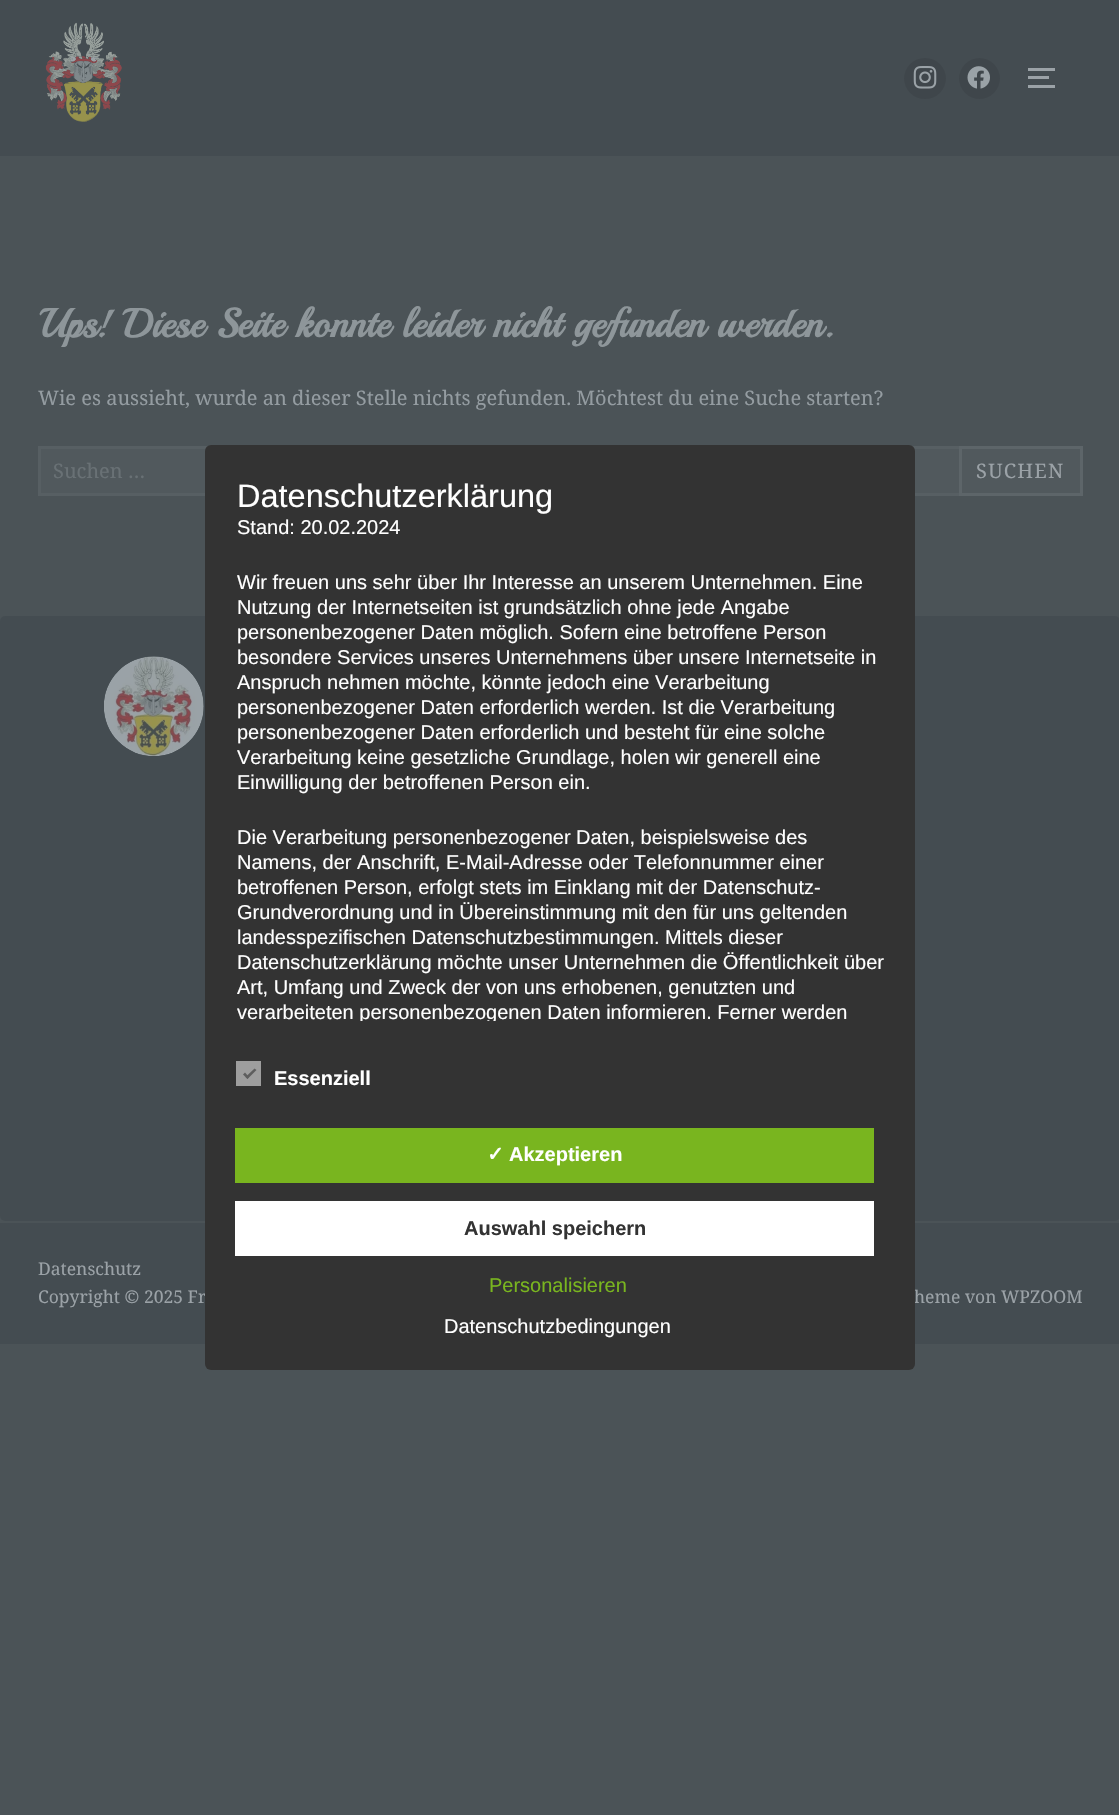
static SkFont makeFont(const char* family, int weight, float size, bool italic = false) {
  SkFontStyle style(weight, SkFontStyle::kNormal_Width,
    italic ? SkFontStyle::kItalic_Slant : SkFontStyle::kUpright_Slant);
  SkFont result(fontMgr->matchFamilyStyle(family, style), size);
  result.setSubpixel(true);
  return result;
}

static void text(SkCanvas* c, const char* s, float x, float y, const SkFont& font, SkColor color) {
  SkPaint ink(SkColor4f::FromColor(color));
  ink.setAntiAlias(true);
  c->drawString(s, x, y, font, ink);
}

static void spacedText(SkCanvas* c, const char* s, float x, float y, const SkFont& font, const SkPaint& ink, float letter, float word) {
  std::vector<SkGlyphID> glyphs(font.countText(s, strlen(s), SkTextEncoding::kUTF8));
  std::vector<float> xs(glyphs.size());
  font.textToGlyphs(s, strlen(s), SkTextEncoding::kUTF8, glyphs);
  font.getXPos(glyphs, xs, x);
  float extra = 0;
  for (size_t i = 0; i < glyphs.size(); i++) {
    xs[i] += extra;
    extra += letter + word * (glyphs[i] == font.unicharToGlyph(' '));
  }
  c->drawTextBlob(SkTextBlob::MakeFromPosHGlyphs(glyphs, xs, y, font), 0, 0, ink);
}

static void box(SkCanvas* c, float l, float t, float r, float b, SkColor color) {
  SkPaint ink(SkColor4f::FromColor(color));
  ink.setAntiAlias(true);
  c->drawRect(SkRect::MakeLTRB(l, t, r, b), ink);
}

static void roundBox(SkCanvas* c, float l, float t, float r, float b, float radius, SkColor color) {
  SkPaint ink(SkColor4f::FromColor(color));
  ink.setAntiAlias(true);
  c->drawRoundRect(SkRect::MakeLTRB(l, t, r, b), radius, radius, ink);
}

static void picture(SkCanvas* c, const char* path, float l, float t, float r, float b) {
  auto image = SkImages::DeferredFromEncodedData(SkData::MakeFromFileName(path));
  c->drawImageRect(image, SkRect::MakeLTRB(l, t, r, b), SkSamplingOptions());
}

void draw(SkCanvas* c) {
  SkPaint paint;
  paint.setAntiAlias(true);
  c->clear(0xff4b5357);
  box(c, 0, 0, 1119, 156, 0xff444c51);
  picture(c, "img_01.png", 45, 22, 122, 122);
  roundBox(c, 904, 58, 946, 99, 20.5f, 0xff3f464b);
  picture(c, "img_02.png", 913, 66, 937, 89);
  paint.setColor(0xff3f464b);
  c->drawCircle(979.5f, 78.5f, 20.5f, paint);
  picture(c, "img_03.png", 967, 66, 990, 89);
  box(c, 1028, 68, 1055, 71, 0xff9ba2a7);
  box(c, 1028, 76, 1049, 79, 0xff9ba2a7);
  box(c, 1028, 85, 1055, 88, 0xff9ba2a7);
  SkFont face1 = makeFont("Playball", 700, 40);
  text(c, "Ups! Diese Seite konnte leider nicht gefunden werden.", 38, 337, face1, 0xff8e969a);
  SkFont face2 = makeFont("Noto Serif", 400, 20);
  text(c, "Wie es aussieht, wurde an dieser Stelle nichts gefunden. Möchtest du eine Suche starten?", 38, 405, face2, 0xff949ca1);
  paint.setColor(0xff51595d);
  c->drawRect(SkRect::MakeLTRB(39.5f, 447.5f, 1081.5f, 494.5f), paint);
  paint.setStyle(SkPaint::kStroke_Style);
  paint.setStrokeWidth(3);
  paint.setColor(0xff575f63);
  c->drawRect(SkRect::MakeLTRB(39.5f, 447.5f, 1081.5f, 494.5f), paint);
  text(c, "Suchen …", 53, 478, face2, 0xff697175);
  paint.setColor(0xff5d6569);
  c->drawRect(SkRect::MakeLTRB(960.5f, 447.5f, 1081.5f, 494.5f), paint);
  paint.setStyle(SkPaint::kFill_Style);
  paint.setColor(0xff9ba2a7);
  spacedText(c, "SUCHEN", 976, 478, face2, paint, 1.25f, 0);
  roundBox(c, 0, 616, 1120, 1221, 5, 0xff444c51);
  picture(c, "img_04.png", 104, 656, 204, 756);
  box(c, 0, 1223, 1119, 1344, 0xff444c51);
  SkFont face3 = makeFont("Noto Serif", 400, 17.5f);
  text(c, "Datenschutz", 38, 1275, face3, 0xff9ba2a7);
  text(c, "Copyright © 2025 Fr", 38, 1303, face3, 0xff9ba2a7);
  text(c, "heme von WPZOOM", 914, 1303, face3, 0xff9ba2a7);
  roundBox(c, 205, 445, 915, 1370, 6, 0xff333333);
  SkFont face4 = makeFont("Liberation Sans", 400, 32.5f);
  text(c, "Datenschutzerklärung", 237, 507, face4, 0xffffffff);
  SkFont face5 = makeFont("Liberation Sans", 400, 20);
  text(c, "Stand: 20.02.2024", 237, 534, face5, 0xffffffff);
  text(c, "Wir freuen uns sehr über Ihr Interesse an unserem Unternehmen. Eine", 237, 589, face5, 0xffffffff);
  text(c, "Nutzung der Internetseiten ist grundsätzlich ohne jede Angabe", 237, 614, face5, 0xffffffff);
  text(c, "personenbezogener Daten möglich. Sofern eine betroffene Person", 237, 639, face5, 0xffffffff);
  text(c, "besondere Services unseres Unternehmens über unsere Internetseite in", 237, 664, face5, 0xffffffff);
  text(c, "Anspruch nehmen möchte, könnte jedoch eine Verarbeitung", 237, 689, face5, 0xffffffff);
  text(c, "personenbezogener Daten erforderlich werden. Ist die Verarbeitung", 237, 714, face5, 0xffffffff);
  text(c, "personenbezogener Daten erforderlich und besteht für eine solche", 237, 739, face5, 0xffffffff);
  text(c, "Verarbeitung keine gesetzliche Grundlage, holen wir generell eine", 237, 764, face5, 0xffffffff);
  text(c, "Einwilligung der betroffenen Person ein.", 237, 789, face5, 0xffffffff);
  text(c, "Die Verarbeitung personenbezogener Daten, beispielsweise des", 237, 844, face5, 0xffffffff);
  text(c, "Namens, der Anschrift, E-Mail-Adresse oder Telefonnummer einer", 237, 869, face5, 0xffffffff);
  text(c, "betroffenen Person, erfolgt stets im Einklang mit der Datenschutz-", 237, 894, face5, 0xffffffff);
  text(c, "Grundverordnung und in Übereinstimmung mit den für uns geltenden", 237, 919, face5, 0xffffffff);
  text(c, "landesspezifischen Datenschutzbestimmungen. Mittels dieser", 237, 944, face5, 0xffffffff);
  text(c, "Datenschutzerklärung möchte unser Unternehmen die Öffentlichkeit über", 237, 969, face5, 0xffffffff);
  text(c, "Art, Umfang und Zweck der von uns erhobenen, genutzten und", 237, 994, face5, 0xffffffff);
  c->save();
  c->clipRect(SkRect::MakeLTRB(236, 476, 896, 1021));
  text(c, "verarbeiteten personenbezogenen Daten informieren. Ferner werden", 237, 1019, face5, 0xffffffff);
  c->restore();
  box(c, 236, 1061, 261, 1086, 0xff9e9e9e);
  paint.setColor(0xff5e5e5e);
  c->drawPath(SkPathBuilder().moveTo(254.5f, 1068.5f).lineTo(256.5f, 1070).lineTo(247.5f, 1079).lineTo(245.5f, 1077).close().detach(), paint);
  c->drawPath(SkPathBuilder().moveTo(245, 1072.5f).lineTo(249, 1077).lineTo(247.5f, 1079).lineTo(243, 1074.5f).close().detach(), paint);
  SkFont face6 = makeFont("Liberation Sans", 700, 20);
  text(c, "Essenziell", 274, 1085, face6, 0xffffffff);
  box(c, 235, 1128, 874, 1183, 0xff79b51f);
  SkFont face7 = makeFont("DejaVu Sans", 700, 20);
  text(c, "✓", 487, 1161, face7, 0xffffffff);
  text(c, "Akzeptieren", 509, 1161, face6, 0xffffffff);
  box(c, 235, 1201, 874, 1256, 0xffffffff);
  text(c, "Auswahl speichern", 464, 1235, face6, 0xff333333);
  text(c, "Personalisieren", 489, 1292, face5, 0xff79b51f);
  text(c, "Datenschutzbedingungen", 444, 1333, face5, 0xffffffff);
}
